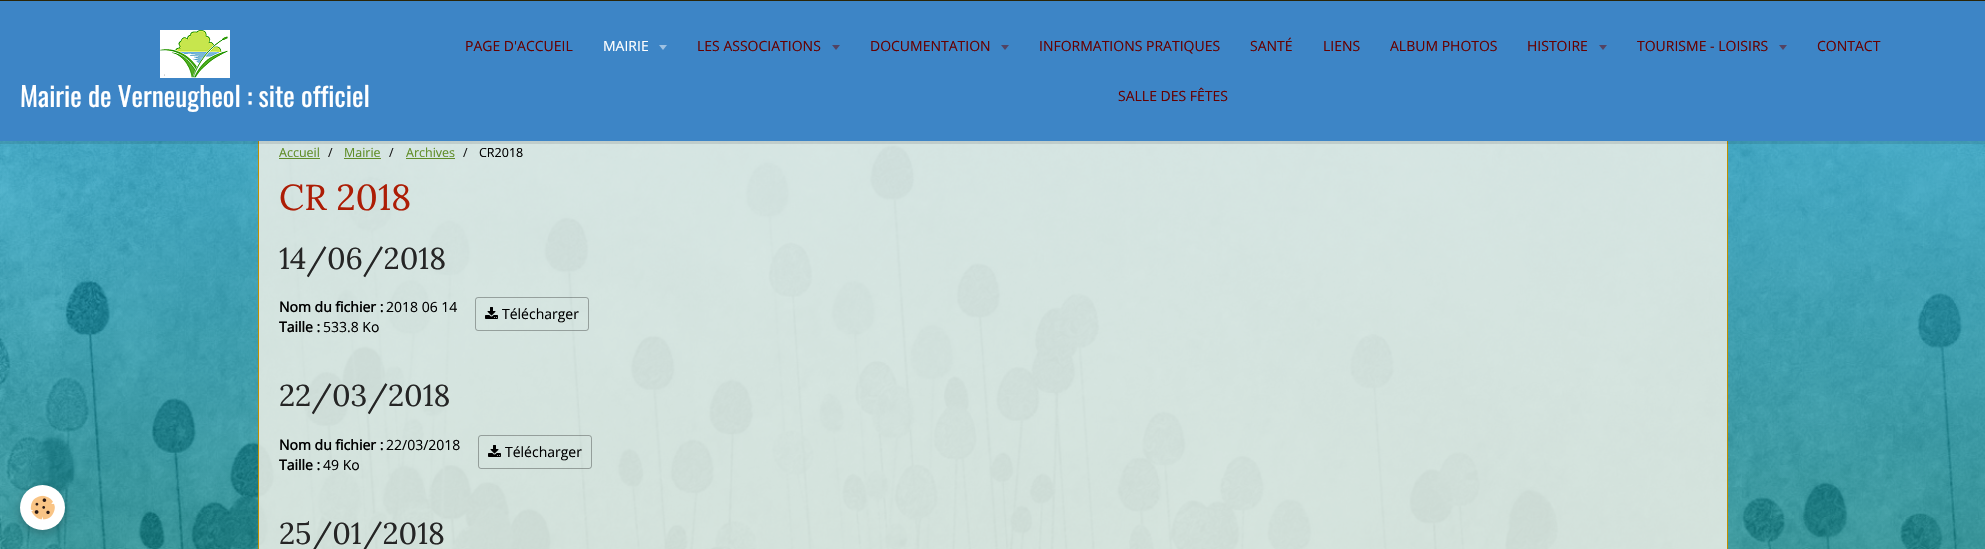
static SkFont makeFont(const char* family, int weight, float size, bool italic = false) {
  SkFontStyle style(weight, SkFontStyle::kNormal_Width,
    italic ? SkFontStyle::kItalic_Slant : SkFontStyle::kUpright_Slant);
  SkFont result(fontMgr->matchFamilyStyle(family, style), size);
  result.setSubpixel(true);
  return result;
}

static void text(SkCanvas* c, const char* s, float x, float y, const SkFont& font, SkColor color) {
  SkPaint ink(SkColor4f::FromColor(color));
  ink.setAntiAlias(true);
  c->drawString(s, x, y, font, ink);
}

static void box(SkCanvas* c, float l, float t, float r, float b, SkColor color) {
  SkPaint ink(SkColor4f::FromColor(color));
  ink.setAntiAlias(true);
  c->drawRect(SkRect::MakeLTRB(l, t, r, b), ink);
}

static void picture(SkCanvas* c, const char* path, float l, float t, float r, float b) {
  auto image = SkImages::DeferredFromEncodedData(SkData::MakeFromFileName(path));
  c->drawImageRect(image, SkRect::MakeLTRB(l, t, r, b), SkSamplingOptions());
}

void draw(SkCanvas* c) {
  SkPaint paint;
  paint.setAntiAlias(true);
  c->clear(0xffffffff);
  picture(c, "img_01.png", 0, 141, 1985, 549);
  box(c, 259, 141, 1727, 549, 0xd9edefe6);
  paint.setStyle(SkPaint::kStroke_Style);
  paint.setStrokeWidth(1);
  paint.setColor(0xffbf9000);
  c->drawRect(SkRect::MakeLTRB(258.5f, 123.5f, 1727.5f, 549.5f), paint);
  box(c, 0, 141, 1985, 144, 0x1a000000);
  box(c, 0, 1, 1985, 141, 0xff3d85c6);
  box(c, 0, 0, 1985, 1, 0xff2b2507);
  picture(c, "img_02.png", 160, 30, 230, 78);
  SkFont face1 = makeFont("Oswald", 400, 27.25f);
  text(c, "Mairie de Verneugheol : site officiel", 20, 107, face1, 0xffffffff);
  SkFont face2 = makeFont("Open Sans", 400, 14);
  text(c, "PAGE D'ACCUEIL", 465, 51, face2, 0xff660000);
  text(c, "MAIRIE", 603, 51, face2, 0xffffffff);
  paint.setStyle(SkPaint::kFill_Style);
  paint.setColor(0xff9ec2e3);
  c->drawPath(SkPathBuilder().moveTo(659, 45).lineTo(667, 45).lineTo(663, 50).close().detach(), paint);
  text(c, "LES ASSOCIATIONS", 697, 51, face2, 0xff660000);
  paint.setColor(0xff524363);
  c->drawPath(SkPathBuilder().moveTo(832, 45).lineTo(840, 45).lineTo(836, 50).close().detach(), paint);
  text(c, "DOCUMENTATION", 870, 51, face2, 0xff660000);
  c->drawPath(SkPathBuilder().moveTo(1001, 45).lineTo(1009, 45).lineTo(1005, 50).close().detach(), paint);
  text(c, "INFORMATIONS PRATIQUES", 1039, 51, face2, 0xff660000);
  text(c, "SANTÉ", 1250, 51, face2, 0xff660000);
  text(c, "LIENS", 1323, 51, face2, 0xff660000);
  text(c, "ALBUM PHOTOS", 1390, 51, face2, 0xff660000);
  text(c, "HISTOIRE", 1527, 51, face2, 0xff660000);
  c->drawPath(SkPathBuilder().moveTo(1599, 45).lineTo(1607, 45).lineTo(1603, 50).close().detach(), paint);
  text(c, "TOURISME - LOISIRS", 1637, 51, face2, 0xff660000);
  c->drawPath(SkPathBuilder().moveTo(1779, 45).lineTo(1787, 45).lineTo(1783, 50).close().detach(), paint);
  text(c, "CONTACT", 1817, 51, face2, 0xff660000);
  text(c, "SALLE DES FÊTES", 1118, 101, face2, 0xff660000);
  paint.setColor(0x3d000000);
  paint.setMaskFilter(SkMaskFilter::MakeBlur(kNormal_SkBlurStyle, 5));
  c->drawRoundRect(SkRect::MakeLTRB(20, 488, 65, 533), 22.5f, 22.5f, paint);
  paint.setMaskFilter(nullptr);
  paint.setColor(0xffffffff);
  c->drawCircle(42.5f, 507.5f, 22.5f, paint);
  picture(c, "img_03.png", 30, 495, 55, 520);
  SkFont face3 = makeFont("Open Sans", 400, 12.5f);
  text(c, "Accueil", 279, 157, face3, 0xff608d27);
  box(c, 279, 158, 320, 159, 0xf55b891f);
  text(c, "/", 328, 157, face3, 0xff1a1a1a);
  text(c, "Mairie", 344, 157, face3, 0xff608d27);
  box(c, 344, 158, 381, 159, 0xff608d27);
  text(c, "/", 389, 157, face3, 0xff1a1a1a);
  text(c, "Archives", 406, 157, face3, 0xff608d27);
  box(c, 406, 158, 455, 159, 0xff608d27);
  text(c, "/", 463, 157, face3, 0xff1a1a1a);
  text(c, "CR2018", 479, 157, face3, 0xff000000);
  SkFont face4 = makeFont("Lora", 400, 36);
  text(c, "CR 2018", 279, 210, face4, 0xffad1d05);
  SkFont face5 = makeFont("Lora", 400, 30);
  text(c, "14/06/2018", 279, 269, face5, 0xff252525);
  SkFont face6 = makeFont("Open Sans", 700, 14);
  text(c, "Nom du fichier :", 279, 312, face6, 0xff000000);
  text(c, "2018 06 14", 386, 312, face2, 0xff000000);
  text(c, "Taille :", 279, 332, face6, 0xff000000);
  text(c, "533.8 Ko", 323, 332, face2, 0xff000000);
  picture(c, "img_04.png", 485, 307, 498, 319);
  paint.setStyle(SkPaint::kStroke_Style);
  paint.setColor(0x4d000000);
  c->drawRoundRect(SkRect::MakeLTRB(475.5f, 297.5f, 588.5f, 330.5f), 2.5f, 2.5f, paint);
  text(c, "Télécharger", 502, 319, face2, 0xff000000);
  text(c, "22/03/2018", 279, 406, face5, 0xff252525);
  text(c, "Nom du fichier :", 279, 450, face6, 0xff000000);
  text(c, "22/03/2018", 386, 450, face2, 0xff000000);
  text(c, "Taille :", 279, 470, face6, 0xff000000);
  text(c, "49 Ko", 323, 470, face2, 0xff000000);
  picture(c, "img_05.png", 488, 445, 501, 457);
  c->drawRoundRect(SkRect::MakeLTRB(478.5f, 435.5f, 591.5f, 468.5f), 2.5f, 2.5f, paint);
  text(c, "Télécharger", 505, 457, face2, 0xff000000);
  text(c, "25/01/2018", 279, 544, face5, 0xff252525);
}
